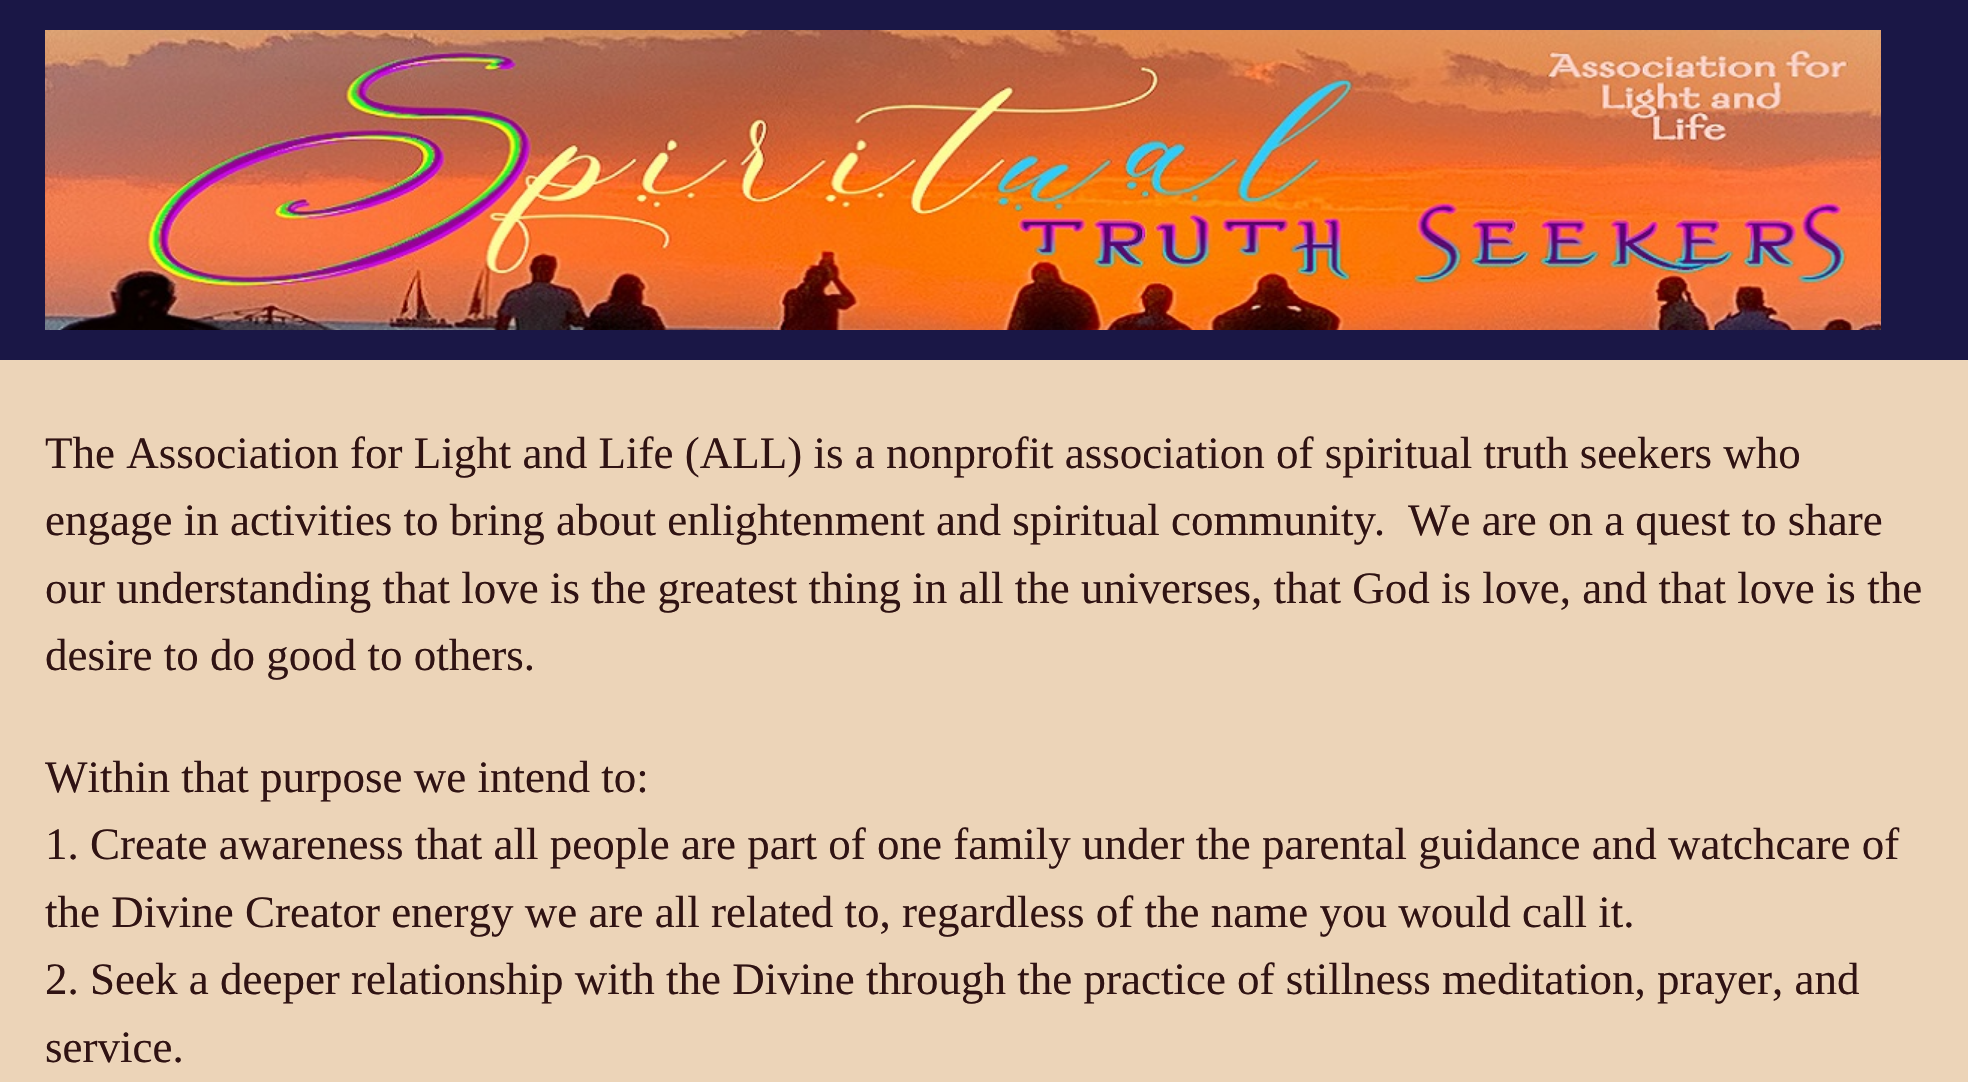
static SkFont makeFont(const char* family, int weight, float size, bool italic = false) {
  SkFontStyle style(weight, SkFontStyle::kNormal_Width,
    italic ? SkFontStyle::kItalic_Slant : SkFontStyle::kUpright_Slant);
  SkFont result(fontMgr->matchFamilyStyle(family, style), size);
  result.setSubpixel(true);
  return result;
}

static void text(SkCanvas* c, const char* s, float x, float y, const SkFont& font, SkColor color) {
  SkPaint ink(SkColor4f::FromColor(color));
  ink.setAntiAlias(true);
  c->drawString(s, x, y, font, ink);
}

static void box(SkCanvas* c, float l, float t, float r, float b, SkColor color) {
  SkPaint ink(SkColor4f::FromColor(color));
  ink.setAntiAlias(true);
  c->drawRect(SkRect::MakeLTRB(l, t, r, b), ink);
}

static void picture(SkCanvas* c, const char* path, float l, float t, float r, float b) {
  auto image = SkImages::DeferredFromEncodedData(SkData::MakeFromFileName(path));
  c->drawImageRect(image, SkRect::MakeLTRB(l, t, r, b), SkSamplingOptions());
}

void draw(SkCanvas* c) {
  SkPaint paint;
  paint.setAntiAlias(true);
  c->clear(0xffecd4b8);
  box(c, 0, 0, 1968, 360, 0xff1a1746);
  picture(c, "img_01.png", 45, 30, 1881, 330);
  SkFont face1 = makeFont("Liberation Serif", 400, 45);
  text(c, "The Association for Light and Life (ALL) is a nonprofit association of spiritual truth seekers who", 45, 468, face1, 0xff301313);
  text(c, "engage in activities to bring about enlightenment and spiritual community", 45, 535, face1, 0xff301313);
  SkFont face2 = makeFont("Liberation Serif", 400, 45, true);
  text(c, ".", 1375, 535, face2, 0xff301313);
  text(c, "We are on a quest to share", 1408, 535, face1, 0xff301313);
  text(c, "our understanding that love is the greatest thing in all the universes, that God is love, and that love is the", 45, 603, face1, 0xff301313);
  text(c, "desire to do good to others.", 45, 670, face1, 0xff301313);
  text(c, "Within that purpose we intend to:", 45, 792, face1, 0xff301313);
  text(c, "1. Create awareness that all people are part of one family under the parental guidance and watchcare of", 45, 859, face1, 0xff301313);
  text(c, "the Divine Creator energy we are all related to, regardless of the name you would call it.", 45, 927, face1, 0xff301313);
  text(c, "2. Seek a deeper relationship with the Divine through the practice of stillness meditation, prayer, and", 45, 994, face1, 0xff301313);
  text(c, "service.", 45, 1062, face1, 0xff301313);
}
